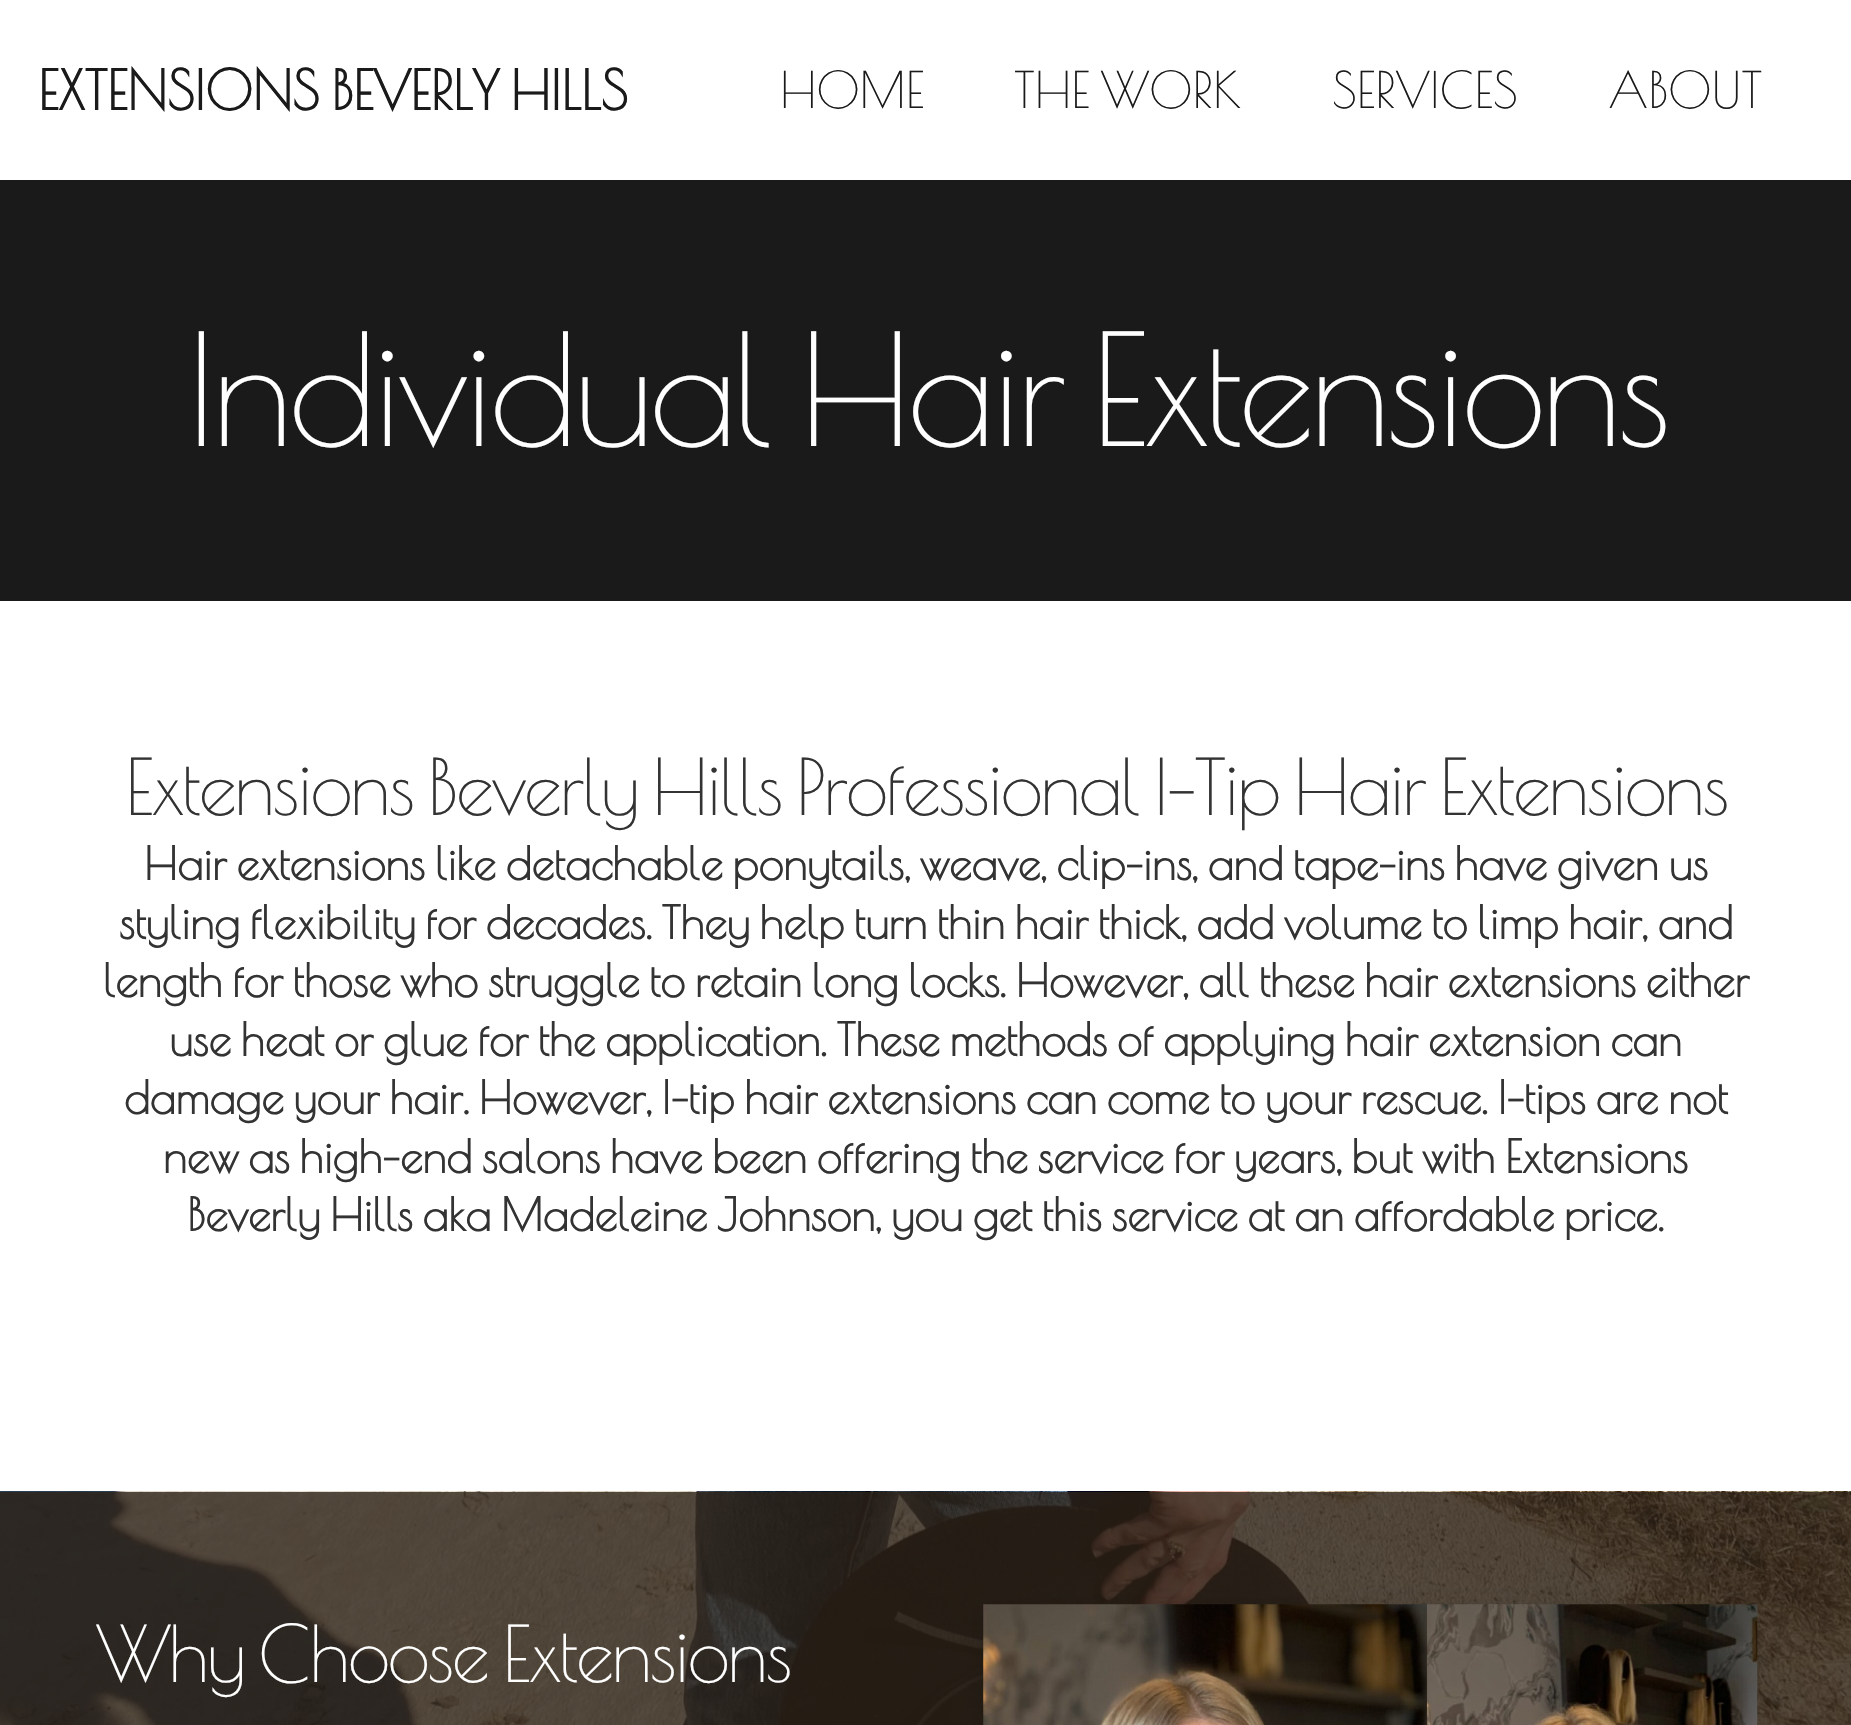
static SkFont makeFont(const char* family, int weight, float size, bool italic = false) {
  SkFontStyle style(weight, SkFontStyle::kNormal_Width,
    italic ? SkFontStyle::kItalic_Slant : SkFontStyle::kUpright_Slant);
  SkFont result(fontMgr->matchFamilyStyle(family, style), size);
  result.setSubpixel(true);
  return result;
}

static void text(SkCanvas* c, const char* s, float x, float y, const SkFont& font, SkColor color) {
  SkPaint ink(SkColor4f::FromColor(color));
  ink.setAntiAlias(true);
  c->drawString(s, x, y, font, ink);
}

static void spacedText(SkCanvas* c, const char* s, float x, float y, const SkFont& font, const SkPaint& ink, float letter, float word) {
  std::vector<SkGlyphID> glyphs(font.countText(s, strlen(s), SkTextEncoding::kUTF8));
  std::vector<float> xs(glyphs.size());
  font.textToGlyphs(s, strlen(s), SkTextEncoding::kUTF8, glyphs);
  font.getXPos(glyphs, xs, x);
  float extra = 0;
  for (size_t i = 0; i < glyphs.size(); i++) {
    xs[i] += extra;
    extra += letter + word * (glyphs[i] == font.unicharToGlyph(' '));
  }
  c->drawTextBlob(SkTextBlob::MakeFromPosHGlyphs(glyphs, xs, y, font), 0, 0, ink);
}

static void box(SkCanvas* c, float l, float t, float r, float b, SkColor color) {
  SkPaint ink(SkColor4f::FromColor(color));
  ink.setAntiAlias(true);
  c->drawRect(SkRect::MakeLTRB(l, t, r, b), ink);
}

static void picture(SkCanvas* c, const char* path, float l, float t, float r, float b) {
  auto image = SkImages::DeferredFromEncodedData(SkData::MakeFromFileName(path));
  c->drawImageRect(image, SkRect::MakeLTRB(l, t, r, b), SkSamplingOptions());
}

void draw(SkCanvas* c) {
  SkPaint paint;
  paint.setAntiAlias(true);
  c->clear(0xffffffff);
  SkFont face1 = makeFont("Poiret One", 700, 54);
  text(c, "EXTENSIONS BEVERLY HILLS", 38, 110, face1, 0xff1a1a1a);
  SkFont face2 = makeFont("Poiret One", 400, 49.5f);
  text(c, "HOME", 780, 108, face2, 0xff1a1a1a);
  text(c, "THE WORK", 1014, 108, face2, 0xff1a1a1a);
  text(c, "SERVICES", 1332, 108, face2, 0xff1a1a1a);
  text(c, "ABOUT", 1608, 108, face2, 0xff1a1a1a);
  box(c, 0, 180, 1851, 601, 0xff1a1a1a);
  SkFont face3 = makeFont("Poiret One", 400, 153);
  paint.setColor(0xffffffff);
  spacedText(c, "Individual Hair Extensions", 186, 446, face3, paint, -4.6f, 0);
  SkFont face4 = makeFont("Poiret One", 400, 76.5f);
  paint.setColor(0xff333333);
  spacedText(c, "Extensions Beverly Hills Professional I-Tip Hair Extensions", 125, 815, face4, paint, -2.3f, 0);
  SkFont face5 = makeFont("Poiret One", 700, 45);
  text(c, "Hair extensions like detachable ponytails, weave, clip-ins, and tape-ins have given us", 144, 880, face5, 0xff333333);
  text(c, "styling flexibility for decades. They help turn thin hair thick, add volume to limp hair, and", 119, 939, face5, 0xff333333);
  text(c, "length for those who struggle to retain long locks. However, all these hair extensions either", 103, 997, face5, 0xff333333);
  text(c, "use heat or glue for the application. These methods of applying hair extension can", 169, 1056, face5, 0xff333333);
  text(c, "damage your hair. However, I-tip hair extensions can come to your rescue. I-tips are not", 124, 1114, face5, 0xff333333);
  text(c, "new as high-end salons have been offering the service for years, but with Extensions", 163, 1173, face5, 0xff333333);
  text(c, "Beverly Hills aka Madeleine Johnson, you get this service at an affordable price.", 187, 1231, face5, 0xff333333);
  picture(c, "img_01.png", 0, 1491, 1851, 1725);
  paint.setColor(0xffffffff);
  spacedText(c, "Why Choose Extensions", 96, 1682, face4, paint, -2.3f, 0);
  paint.setColor(0x26000000);
  paint.setMaskFilter(SkMaskFilter::MakeBlur(kNormal_SkBlurStyle, 11));
  c->drawRect(SkRect::MakeLTRB(983, 1611, 1757, 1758), paint);
  paint.setMaskFilter(nullptr);
  picture(c, "img_02.png", 983, 1604, 1758, 1725);
}
